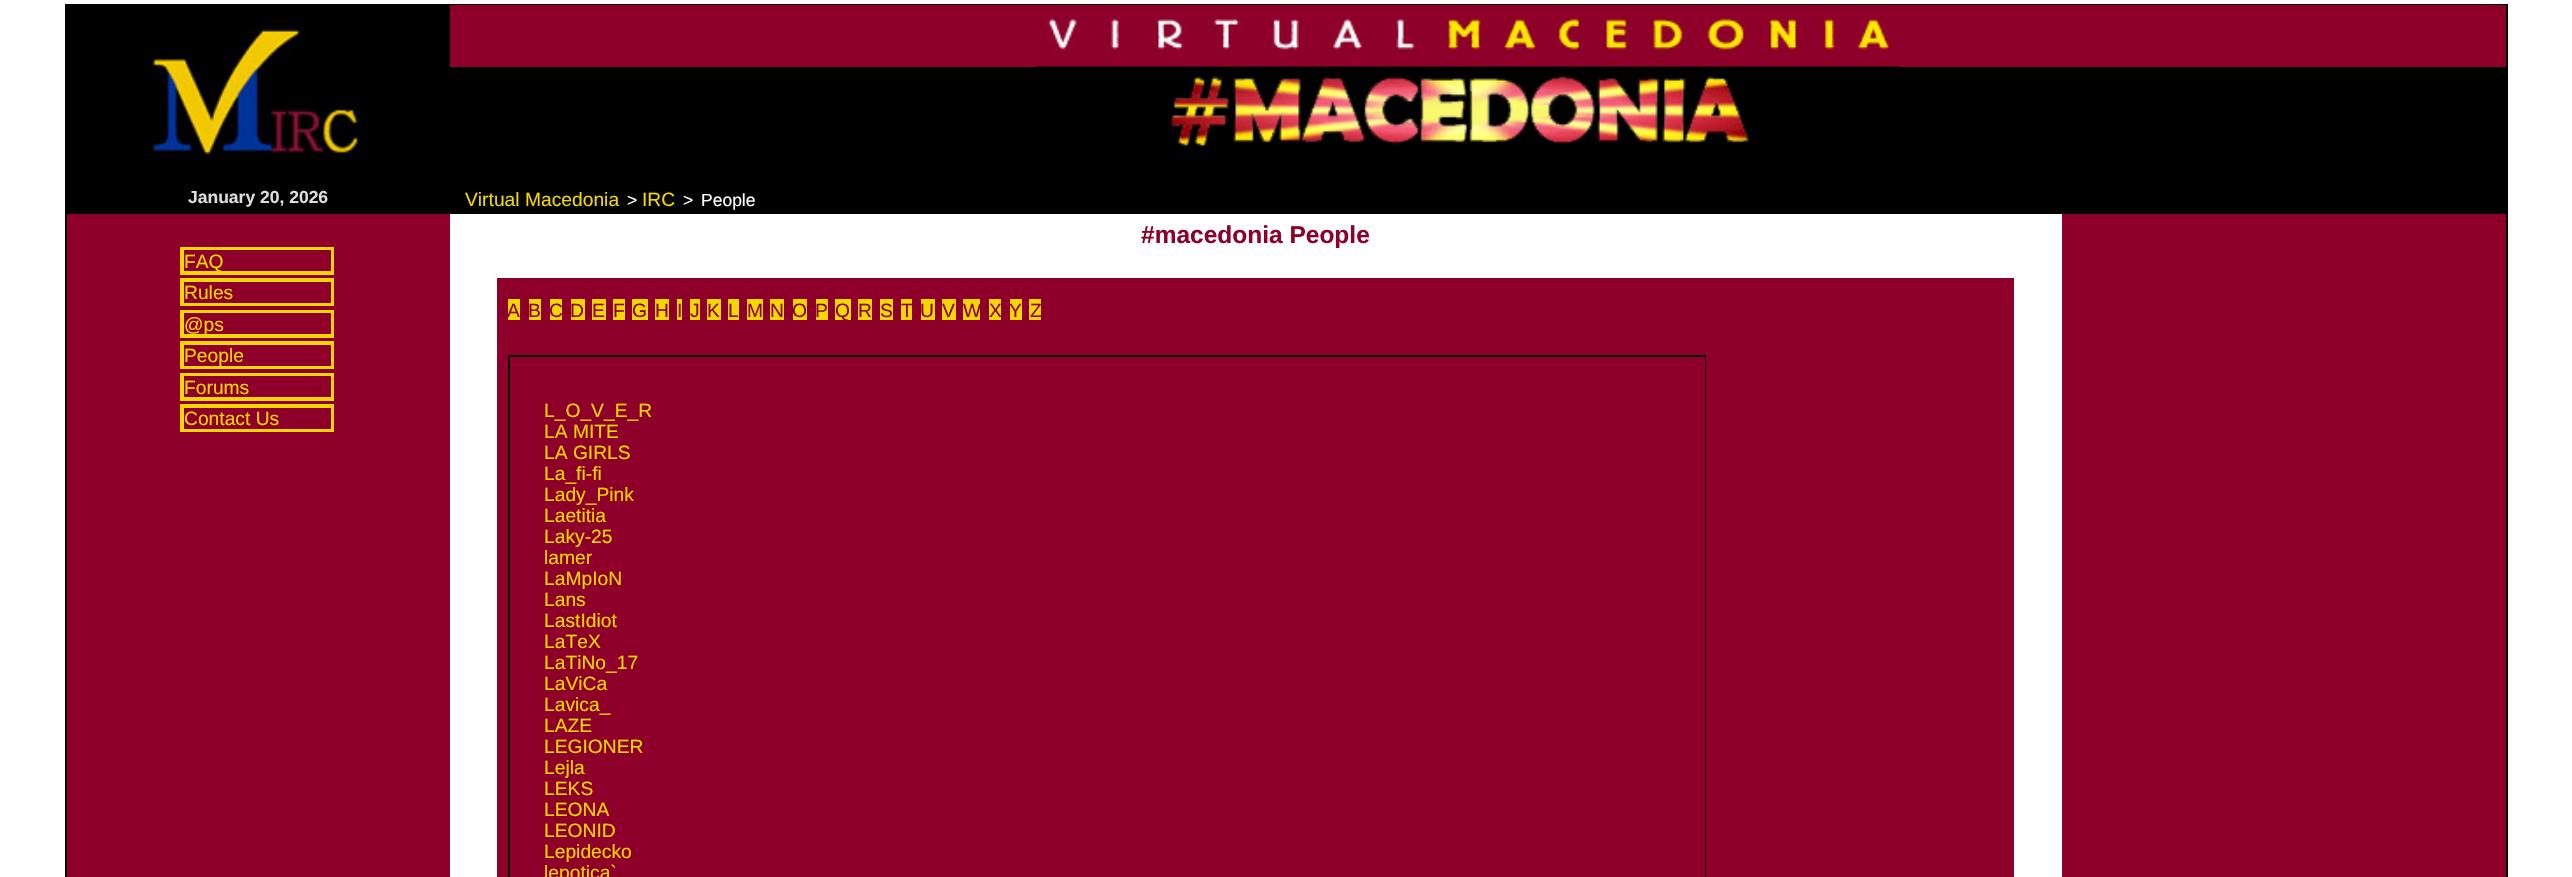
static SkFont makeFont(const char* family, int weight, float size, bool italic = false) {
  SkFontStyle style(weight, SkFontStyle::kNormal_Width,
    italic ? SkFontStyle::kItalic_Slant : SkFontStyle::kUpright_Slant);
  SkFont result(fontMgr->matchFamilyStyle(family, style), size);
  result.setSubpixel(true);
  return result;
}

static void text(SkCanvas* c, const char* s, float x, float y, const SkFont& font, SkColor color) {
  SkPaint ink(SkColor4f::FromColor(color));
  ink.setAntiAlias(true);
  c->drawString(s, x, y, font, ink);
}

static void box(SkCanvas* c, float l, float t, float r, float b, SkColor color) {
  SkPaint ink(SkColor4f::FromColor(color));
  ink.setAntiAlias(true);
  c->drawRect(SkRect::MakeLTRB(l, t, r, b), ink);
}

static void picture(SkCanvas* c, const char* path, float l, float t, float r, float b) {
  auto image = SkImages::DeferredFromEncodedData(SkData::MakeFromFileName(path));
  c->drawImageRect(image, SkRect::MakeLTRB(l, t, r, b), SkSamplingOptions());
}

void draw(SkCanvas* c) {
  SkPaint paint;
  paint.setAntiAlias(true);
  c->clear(0xffffffff);
  paint.setStyle(SkPaint::kStroke_Style);
  paint.setStrokeWidth(2);
  paint.setColor(0xff000000);
  c->drawRect(SkRect::MakeLTRB(66, 5, 2507, 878), paint);
  box(c, 67, 6, 450, 214, 0xff000000);
  picture(c, "img_01.png", 152, 28, 363, 155);
  box(c, 450, 67, 2506, 214, 0xff000000);
  box(c, 450, 5, 2506, 67, 0xff8e002a);
  picture(c, "img_02.png", 1045, 18, 1890, 62);
  picture(c, "img_03.png", 1036, 66, 1901, 146);
  SkFont face1 = makeFont("Liberation Sans", 700, 17.5f);
  text(c, "January 20, 2026", 188, 203, face1, 0xffdddddd);
  SkFont face2 = makeFont("Liberation Sans", 400, 19.25f);
  text(c, "Virtual Macedonia", 465, 206, face2, 0xfff2d800);
  SkFont face3 = makeFont("Liberation Sans", 400, 17.5f);
  text(c, ">", 627, 206, face3, 0xffffffff);
  text(c, "IRC", 642, 206, face2, 0xfff2d800);
  text(c, ">", 683, 206, face3, 0xffffffff);
  text(c, "People", 701, 206, face3, 0xffffffff);
  box(c, 67, 214, 450, 877, 0xff8e002a);
  box(c, 180, 247, 334, 275, 0xfff2d800);
  box(c, 184, 250, 331, 271, 0xff8e002a);
  text(c, "FAQ", 184, 268, face2, 0xfff2d800);
  box(c, 180, 278, 334, 306, 0xfff2d800);
  box(c, 184, 282, 331, 303, 0xff8e002a);
  text(c, "Rules", 184, 299, face2, 0xfff2d800);
  box(c, 180, 310, 334, 338, 0xfff2d800);
  box(c, 184, 313, 331, 334, 0xff8e002a);
  text(c, "@ps", 184, 331, face2, 0xfff2d800);
  box(c, 180, 341, 334, 369, 0xfff2d800);
  box(c, 184, 345, 331, 366, 0xff8e002a);
  text(c, "People", 184, 362, face2, 0xfff2d800);
  box(c, 180, 373, 334, 401, 0xfff2d800);
  box(c, 184, 376, 331, 397, 0xff8e002a);
  text(c, "Forums", 184, 394, face2, 0xfff2d800);
  box(c, 180, 404, 334, 432, 0xfff2d800);
  box(c, 184, 408, 331, 429, 0xff8e002a);
  text(c, "Contact Us", 184, 425, face2, 0xfff2d800);
  SkFont face4 = makeFont("Liberation Sans", 700, 24.5f);
  text(c, "#macedonia People", 1141, 243, face4, 0xff8e002a);
  box(c, 497, 278, 2014, 877, 0xff8e002a);
  box(c, 508, 299, 520, 320, 0xfff2d800);
  text(c, "A", 507, 317, face2, 0xff8e002a);
  box(c, 529, 299, 541, 320, 0xfff2d800);
  text(c, "B", 528, 317, face2, 0xff8e002a);
  box(c, 550, 299, 562, 320, 0xfff2d800);
  text(c, "C", 549, 317, face2, 0xff8e002a);
  box(c, 571, 299, 585, 320, 0xfff2d800);
  text(c, "D", 570, 317, face2, 0xff8e002a);
  box(c, 592, 299, 606, 320, 0xfff2d800);
  text(c, "E", 592, 317, face2, 0xff8e002a);
  box(c, 613, 299, 625, 320, 0xfff2d800);
  text(c, "F", 613, 317, face2, 0xff8e002a);
  box(c, 632, 299, 648, 320, 0xfff2d800);
  text(c, "G", 632, 317, face2, 0xff8e002a);
  box(c, 655, 299, 669, 320, 0xfff2d800);
  text(c, "H", 655, 317, face2, 0xff8e002a);
  box(c, 677, 299, 682, 320, 0xfff2d800);
  text(c, "I", 677, 317, face2, 0xff8e002a);
  box(c, 690, 299, 700, 320, 0xfff2d800);
  text(c, "J", 690, 317, face2, 0xff8e002a);
  box(c, 707, 299, 721, 320, 0xfff2d800);
  text(c, "K", 707, 317, face2, 0xff8e002a);
  box(c, 728, 299, 739, 320, 0xfff2d800);
  text(c, "L", 728, 317, face2, 0xff8e002a);
  box(c, 747, 299, 763, 320, 0xfff2d800);
  text(c, "M", 747, 317, face2, 0xff8e002a);
  box(c, 770, 299, 784, 320, 0xfff2d800);
  text(c, "N", 770, 317, face2, 0xff8e002a);
  box(c, 793, 299, 807, 320, 0xfff2d800);
  text(c, "O", 792, 317, face2, 0xff8e002a);
  box(c, 816, 299, 828, 320, 0xfff2d800);
  text(c, "P", 815, 317, face2, 0xff8e002a);
  box(c, 835, 299, 851, 320, 0xfff2d800);
  text(c, "Q", 835, 317, face2, 0xff8e002a);
  box(c, 858, 299, 872, 320, 0xfff2d800);
  text(c, "R", 858, 317, face2, 0xff8e002a);
  box(c, 880, 299, 893, 320, 0xfff2d800);
  text(c, "S", 880, 317, face2, 0xff8e002a);
  box(c, 901, 299, 912, 320, 0xfff2d800);
  text(c, "T", 901, 317, face2, 0xff8e002a);
  box(c, 921, 299, 935, 320, 0xfff2d800);
  text(c, "U", 920, 317, face2, 0xff8e002a);
  box(c, 942, 299, 956, 320, 0xfff2d800);
  text(c, "V", 942, 317, face2, 0xff8e002a);
  box(c, 963, 299, 980, 320, 0xfff2d800);
  text(c, "W", 963, 317, face2, 0xff8e002a);
  box(c, 989, 299, 1001, 320, 0xfff2d800);
  text(c, "X", 989, 317, face2, 0xff8e002a);
  box(c, 1010, 299, 1022, 320, 0xfff2d800);
  text(c, "Y", 1009, 317, face2, 0xff8e002a);
  box(c, 1029, 299, 1041, 320, 0xfff2d800);
  text(c, "Z", 1030, 317, face2, 0xff8e002a);
  c->drawRect(SkRect::MakeLTRB(509, 356, 1705, 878), paint);
  box(c, 1704, 357, 1705, 877, 0xff8e002a);
  text(c, "L_O_V_E_R", 544, 417, face2, 0xfff2d800);
  text(c, "LA MITE", 544, 438, face2, 0xfff2d800);
  text(c, "LA GIRLS", 544, 459, face2, 0xfff2d800);
  text(c, "La_fi-fi", 544, 480, face2, 0xfff2d800);
  text(c, "Lady_Pink", 544, 501, face2, 0xfff2d800);
  text(c, "Laetitia", 544, 522, face2, 0xfff2d800);
  text(c, "Laky-25", 544, 543, face2, 0xfff2d800);
  text(c, "lamer", 544, 564, face2, 0xfff2d800);
  text(c, "LaMpIoN", 544, 585, face2, 0xfff2d800);
  text(c, "Lans", 544, 606, face2, 0xfff2d800);
  text(c, "LastIdiot", 544, 627, face2, 0xfff2d800);
  text(c, "LaTeX", 544, 648, face2, 0xfff2d800);
  text(c, "LaTiNo_17", 544, 669, face2, 0xfff2d800);
  text(c, "LaViCa", 544, 690, face2, 0xfff2d800);
  text(c, "Lavica_", 544, 711, face2, 0xfff2d800);
  text(c, "LAZE", 544, 732, face2, 0xfff2d800);
  text(c, "LEGIONER", 544, 753, face2, 0xfff2d800);
  text(c, "Lejla", 544, 774, face2, 0xfff2d800);
  text(c, "LEKS", 544, 795, face2, 0xfff2d800);
  text(c, "LEONA", 544, 816, face2, 0xfff2d800);
  text(c, "LEONID", 544, 837, face2, 0xfff2d800);
  text(c, "Lepidecko", 544, 858, face2, 0xfff2d800);
  text(c, "lepotica`", 544, 879, face2, 0xfff2d800);
  box(c, 2062, 214, 2506, 877, 0xff8e002a);
}
